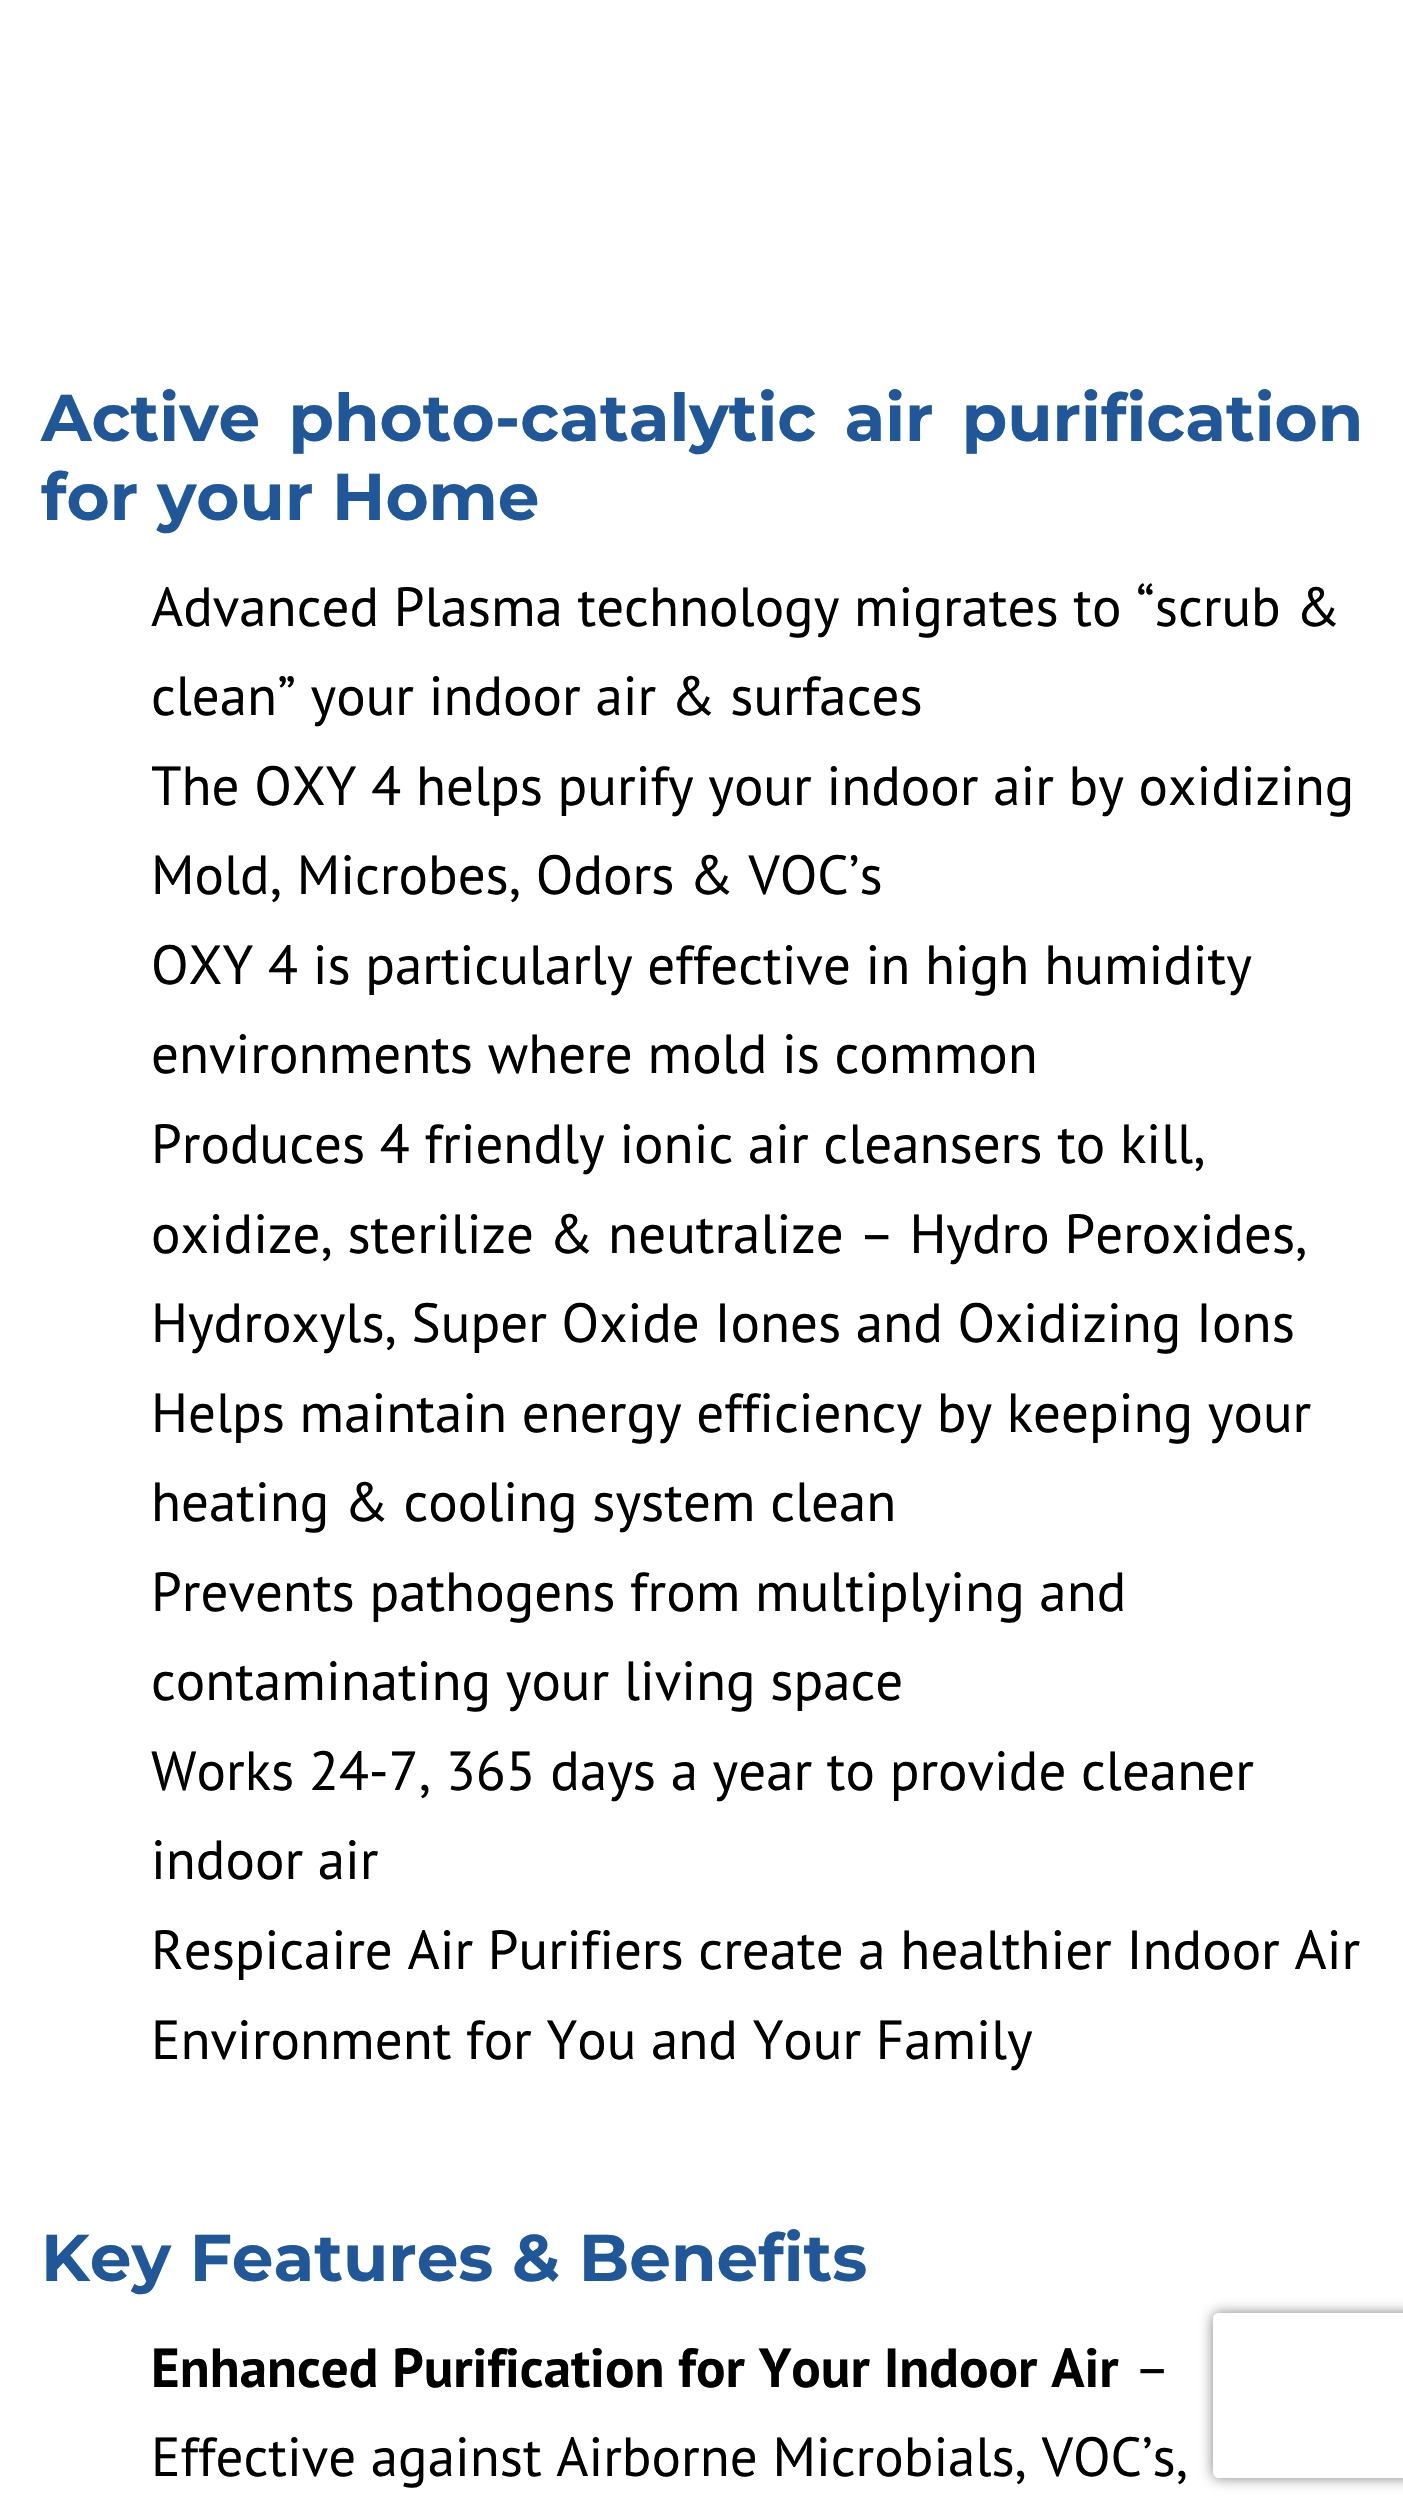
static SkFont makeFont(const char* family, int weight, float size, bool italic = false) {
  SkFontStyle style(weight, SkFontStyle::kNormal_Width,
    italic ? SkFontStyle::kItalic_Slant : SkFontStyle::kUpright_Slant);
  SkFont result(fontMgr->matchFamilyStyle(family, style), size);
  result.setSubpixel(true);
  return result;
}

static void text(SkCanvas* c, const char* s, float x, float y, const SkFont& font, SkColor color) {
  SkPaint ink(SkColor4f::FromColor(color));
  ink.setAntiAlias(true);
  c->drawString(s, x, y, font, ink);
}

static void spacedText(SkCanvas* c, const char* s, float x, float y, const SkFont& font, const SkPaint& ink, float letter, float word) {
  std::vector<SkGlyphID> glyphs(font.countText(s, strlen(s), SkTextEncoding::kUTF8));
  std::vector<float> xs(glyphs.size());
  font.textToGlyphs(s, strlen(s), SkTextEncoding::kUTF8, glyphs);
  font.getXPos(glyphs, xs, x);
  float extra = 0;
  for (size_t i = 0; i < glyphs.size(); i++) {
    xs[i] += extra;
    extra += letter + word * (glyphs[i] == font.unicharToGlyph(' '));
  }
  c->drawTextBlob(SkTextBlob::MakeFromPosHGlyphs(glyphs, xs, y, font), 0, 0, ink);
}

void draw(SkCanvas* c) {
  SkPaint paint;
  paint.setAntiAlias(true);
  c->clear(0xffffffff);
  SkFont face1 = makeFont("Montserrat", 700, 66);
  paint.setColor(0xff205799);
  spacedText(c, "Active photo-catalytic air purification", 41, 441, face1, paint, 0, 9.5f);
  text(c, "for your Home", 41, 520, face1, 0xff205799);
  SkFont face2 = makeFont("PT Sans", 400, 55);
  text(c, "Advanced Plasma technology migrates to “scrub &", 151, 626, face2, 0xff000000);
  text(c, "clean” your indoor air & surfaces", 151, 715, face2, 0xff000000);
  text(c, "The OXY 4 helps purify your indoor air by oxidizing", 151, 805, face2, 0xff000000);
  text(c, "Mold, Microbes, Odors & VOC’s", 151, 894, face2, 0xff000000);
  text(c, "OXY 4 is particularly effective in high humidity", 151, 984, face2, 0xff000000);
  text(c, "environments where mold is common", 151, 1073, face2, 0xff000000);
  text(c, "Produces 4 friendly ionic air cleansers to kill,", 151, 1163, face2, 0xff000000);
  text(c, "oxidize, sterilize & neutralize – Hydro Peroxides,", 151, 1253, face2, 0xff000000);
  text(c, "Hydroxyls, Super Oxide Iones and Oxidizing Ions", 151, 1342, face2, 0xff000000);
  text(c, "Helps maintain energy efficiency by keeping your", 151, 1432, face2, 0xff000000);
  text(c, "heating & cooling system clean", 151, 1521, face2, 0xff000000);
  text(c, "Prevents pathogens from multiplying and", 151, 1611, face2, 0xff000000);
  text(c, "contaminating your living space", 151, 1700, face2, 0xff000000);
  text(c, "Works 24-7, 365 days a year to provide cleaner", 151, 1790, face2, 0xff000000);
  text(c, "indoor air", 151, 1879, face2, 0xff000000);
  text(c, "Respicaire Air Purifiers create a healthier Indoor Air", 151, 1969, face2, 0xff000000);
  text(c, "Environment for You and Your Family", 151, 2059, face2, 0xff000000);
  text(c, "Key Features & Benefits", 41, 2281, face1, 0xff205799);
  SkFont face3 = makeFont("PT Sans", 700, 55);
  text(c, "Enhanced Purification for Your Indoor Air", 151, 2387, face3, 0xff000000);
  text(c, "–", 1134, 2387, face2, 0xff000000);
  text(c, "Effective against Airborne Microbials, VOC’s,", 151, 2476, face2, 0xff000000);
  c->save();
  c->clipPath(SkPathBuilder(SkPathFillType::kEvenOdd).moveTo(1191, 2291).lineTo(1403, 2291).lineTo(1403, 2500).lineTo(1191, 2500).close().moveTo(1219, 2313).lineTo(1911, 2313).cubicTo(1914.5f, 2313, 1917, 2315.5f, 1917, 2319).lineTo(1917, 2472).cubicTo(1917, 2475.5f, 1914.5f, 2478, 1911, 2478).lineTo(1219, 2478).cubicTo(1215.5f, 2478, 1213, 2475.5f, 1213, 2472).lineTo(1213, 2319).cubicTo(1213, 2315.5f, 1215.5f, 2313, 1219, 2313).close().detach(), true);
  paint.setColor(0xff808080);
  paint.setMaskFilter(SkMaskFilter::MakeBlur(kNormal_SkBlurStyle, 7));
  c->drawRoundRect(SkRect::MakeLTRB(1213, 2313, 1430, 2478), 6, 6, paint);
  paint.setMaskFilter(nullptr);
  c->restore();
}
